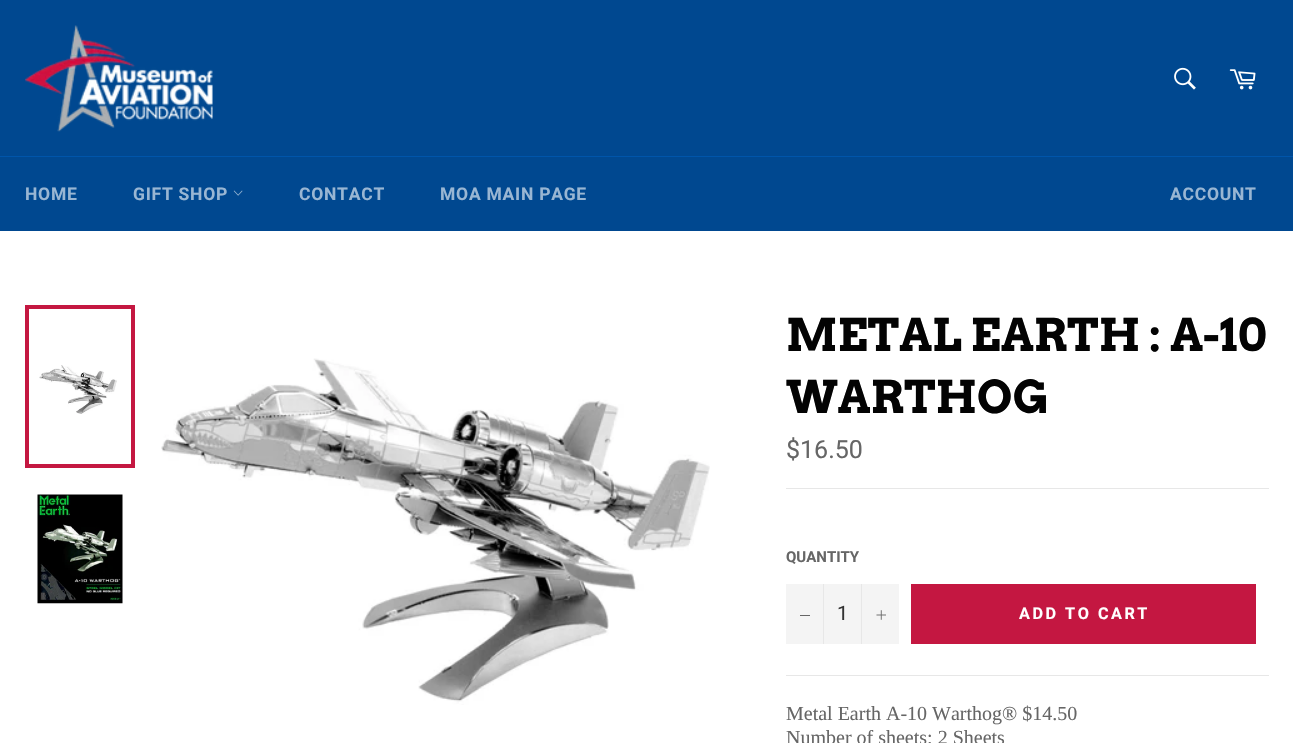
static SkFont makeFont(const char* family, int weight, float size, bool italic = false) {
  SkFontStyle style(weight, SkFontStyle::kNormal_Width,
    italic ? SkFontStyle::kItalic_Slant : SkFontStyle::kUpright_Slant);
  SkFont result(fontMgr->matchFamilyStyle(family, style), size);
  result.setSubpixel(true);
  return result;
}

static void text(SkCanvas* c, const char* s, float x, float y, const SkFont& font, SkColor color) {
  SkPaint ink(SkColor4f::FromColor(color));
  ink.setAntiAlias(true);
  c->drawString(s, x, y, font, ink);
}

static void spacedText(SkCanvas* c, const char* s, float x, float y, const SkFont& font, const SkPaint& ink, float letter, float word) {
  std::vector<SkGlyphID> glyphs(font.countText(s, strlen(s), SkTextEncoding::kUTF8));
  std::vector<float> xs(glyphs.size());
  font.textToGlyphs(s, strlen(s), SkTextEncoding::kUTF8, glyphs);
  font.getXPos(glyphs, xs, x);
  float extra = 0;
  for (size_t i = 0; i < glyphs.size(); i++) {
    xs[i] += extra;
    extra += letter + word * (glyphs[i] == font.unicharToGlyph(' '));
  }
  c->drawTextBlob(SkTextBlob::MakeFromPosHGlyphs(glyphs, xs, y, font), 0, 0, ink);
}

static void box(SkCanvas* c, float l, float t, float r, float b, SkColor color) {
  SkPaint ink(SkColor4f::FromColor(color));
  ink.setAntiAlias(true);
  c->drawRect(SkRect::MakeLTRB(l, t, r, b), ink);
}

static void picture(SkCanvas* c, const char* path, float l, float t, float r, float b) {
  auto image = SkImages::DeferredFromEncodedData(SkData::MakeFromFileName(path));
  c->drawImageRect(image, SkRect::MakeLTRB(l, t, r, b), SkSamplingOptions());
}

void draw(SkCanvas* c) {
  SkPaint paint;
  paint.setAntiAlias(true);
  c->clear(0xff004890);
  picture(c, "img_01.png", 25, 25, 213, 132);
  picture(c, "img_02.png", 1174, 67, 1196, 90);
  picture(c, "img_03.png", 1229, 69, 1256, 90);
  box(c, 0, 156, 1293, 157, 0xff0055aa);
  SkFont face1 = makeFont("Roboto", 700, 17.5f);
  paint.setColor(0xff99b6d3);
  spacedText(c, "HOME", 25, 200, face1, paint, 0.75f, 0);
  spacedText(c, "GIFT SHOP", 133, 200, face1, paint, 0.75f, 0);
  picture(c, "img_04.png", 233, 190, 243, 196);
  spacedText(c, "CONTACT", 299, 200, face1, paint, 0.75f, 0);
  spacedText(c, "MOA MAIN PAGE", 440, 200, face1, paint, 0.75f, 0);
  spacedText(c, "ACCOUNT", 1170, 200, face1, paint, 0.75f, 0);
  box(c, 0, 231, 1293, 743, 0xffffffff);
  picture(c, "img_05.png", 39, 365, 117, 414);
  paint.setStyle(SkPaint::kStroke_Style);
  paint.setStrokeWidth(4);
  paint.setColor(0xffc41741);
  c->drawRect(SkRect::MakeLTRB(27, 307, 133, 466), paint);
  picture(c, "img_06.png", 37, 494, 123, 604);
  picture(c, "img_07.png", 161, 358, 710, 705);
  SkFont face2 = makeFont("Arvo", 700, 45);
  text(c, "METAL EARTH : A-10", 786, 351, face2, 0xff030303);
  text(c, "WARTHOG", 786, 413, face2, 0xff030303);
  SkFont face3 = makeFont("Roboto", 400, 25);
  text(c, "$16.50", 786, 458, face3, 0xff666666);
  box(c, 786, 488, 1269, 489, 0xffe7e7e7);
  SkFont face4 = makeFont("Roboto", 700, 15);
  text(c, "QUANTITY", 786, 562, face4, 0xff666666);
  box(c, 786, 584, 899, 644, 0xfff4f4f4);
  box(c, 823, 584, 824, 644, 0xffe7e7e7);
  box(c, 800, 615, 810, 616, 0xff666666);
  SkFont face5 = makeFont("Roboto", 400, 20);
  text(c, "1", 837, 620, face5, 0xff333333);
  box(c, 861, 584, 862, 644, 0xffe7e7e7);
  picture(c, "img_08.png", 876, 610, 886, 620);
  box(c, 911, 584, 1256, 644, 0xffc41741);
  SkFont face6 = makeFont("Roboto", 700, 16.25f);
  paint.setStyle(SkPaint::kFill_Style);
  paint.setColor(0xffffffff);
  spacedText(c, "ADD TO CART", 1019, 619, face6, paint, 2.5f, 0);
  box(c, 786, 675, 1269, 676, 0xffe7e7e7);
  SkFont face7 = makeFont("Liberation Serif", 400, 20);
  text(c, "Metal Earth A-10 Warthog® $14.50", 786, 720, face7, 0xff666666);
  text(c, "Number of sheets: 2 Sheets", 786, 744, face7, 0xff666666);
}
